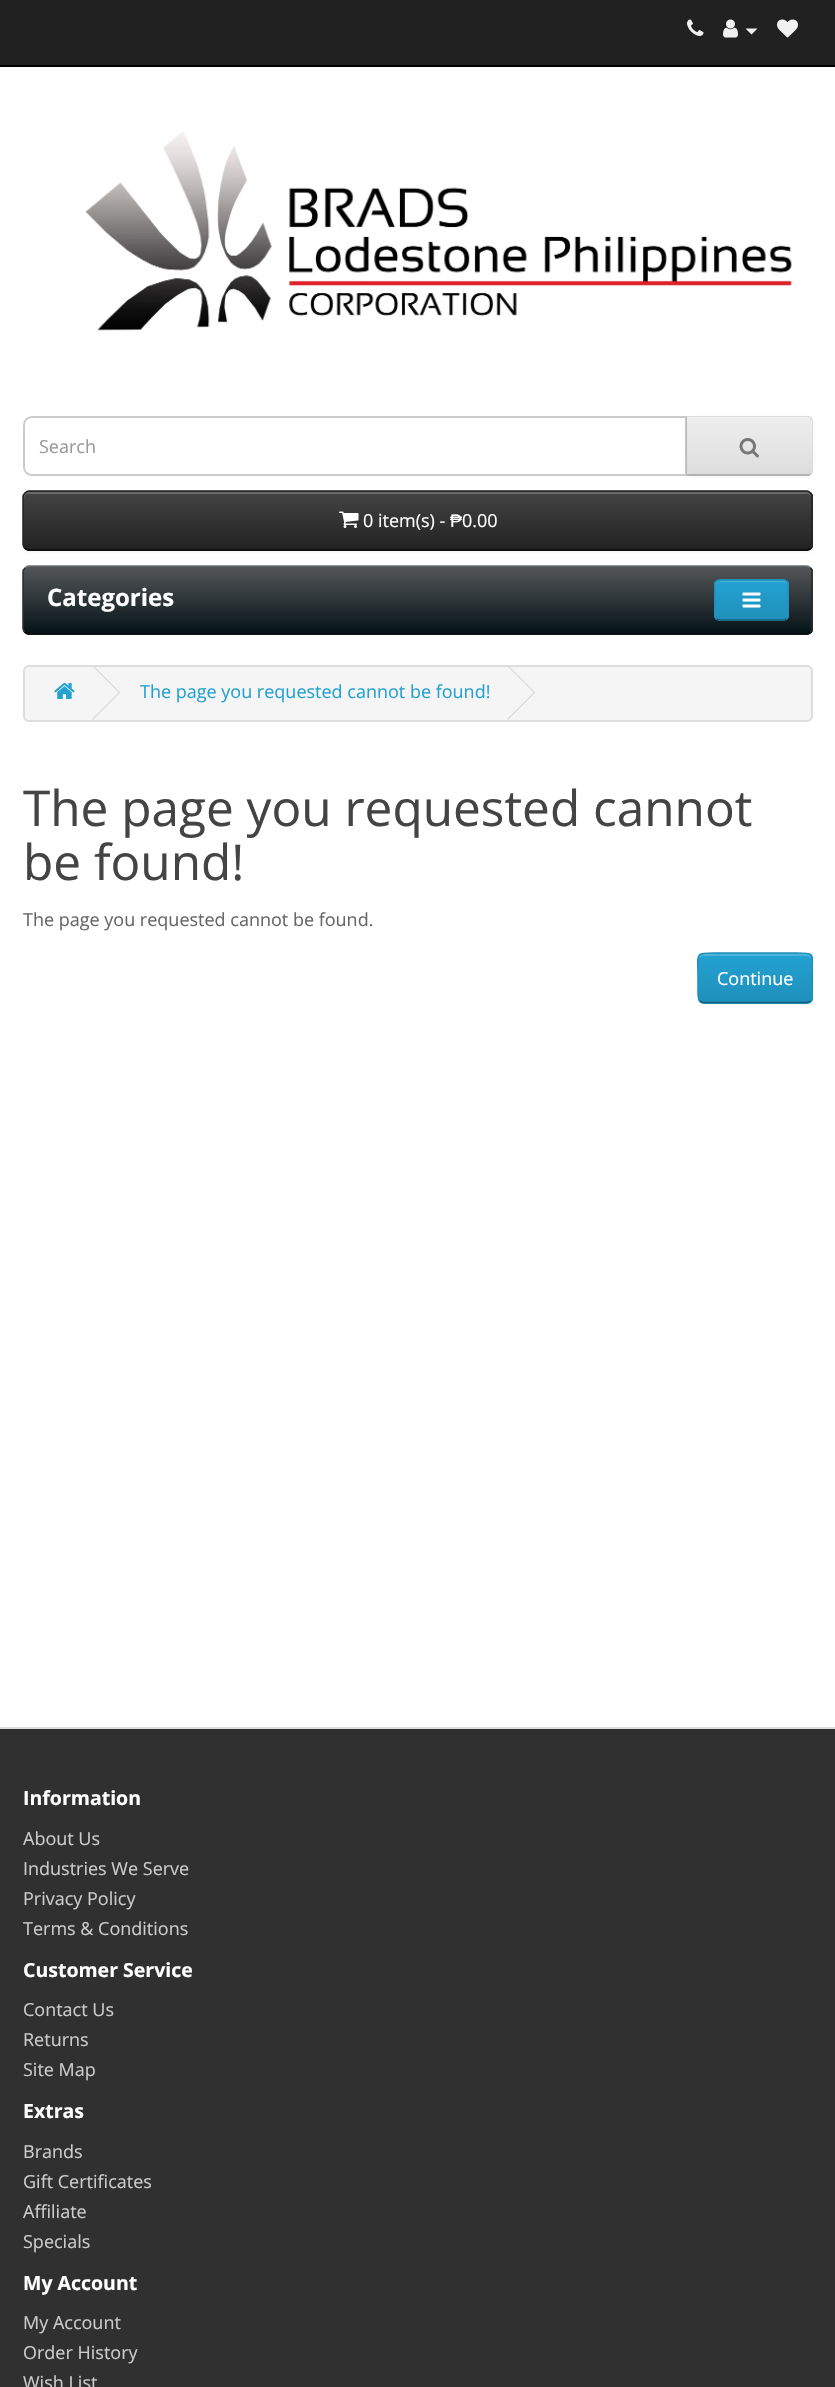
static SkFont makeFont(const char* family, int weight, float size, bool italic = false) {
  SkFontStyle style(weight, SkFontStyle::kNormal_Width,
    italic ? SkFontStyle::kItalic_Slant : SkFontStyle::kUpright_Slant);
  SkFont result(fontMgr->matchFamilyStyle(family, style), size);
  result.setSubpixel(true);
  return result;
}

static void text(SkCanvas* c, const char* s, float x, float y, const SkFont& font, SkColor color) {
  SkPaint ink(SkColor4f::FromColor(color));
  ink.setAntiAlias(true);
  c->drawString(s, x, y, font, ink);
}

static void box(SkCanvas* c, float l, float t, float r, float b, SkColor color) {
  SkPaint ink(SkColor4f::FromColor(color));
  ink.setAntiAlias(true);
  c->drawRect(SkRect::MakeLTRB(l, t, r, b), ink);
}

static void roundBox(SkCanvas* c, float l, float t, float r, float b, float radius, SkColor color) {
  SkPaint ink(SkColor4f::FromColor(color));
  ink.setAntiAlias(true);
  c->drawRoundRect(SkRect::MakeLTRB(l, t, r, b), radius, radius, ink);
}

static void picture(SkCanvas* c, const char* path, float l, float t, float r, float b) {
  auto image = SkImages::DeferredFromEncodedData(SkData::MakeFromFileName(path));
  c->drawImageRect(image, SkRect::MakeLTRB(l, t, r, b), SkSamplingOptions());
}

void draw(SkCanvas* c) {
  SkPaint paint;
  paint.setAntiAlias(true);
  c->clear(0xffffffff);
  box(c, 0, 0, 835, 65, 0xff212121);
  box(c, 0, 65, 835, 67, 0xff000000);
  picture(c, "img_01.png", 687, 19, 704, 36);
  picture(c, "img_02.png", 723, 19, 738, 38);
  paint.setColor(0xfff1f1f1);
  c->drawPath(SkPathBuilder().moveTo(745.5f, 28.5f).lineTo(757.5f, 28.5f).lineTo(751.5f, 34.5f).close().detach(), paint);
  picture(c, "img_03.png", 777, 19, 798, 38);
  picture(c, "img_04.png", 85, 131, 793, 331);
  paint.setStyle(SkPaint::kStroke_Style);
  paint.setStrokeWidth(2);
  paint.setColor(0xffcccccc);
  c->drawPath(SkPathBuilder().moveTo(32, 417).lineTo(686, 417).lineTo(686, 475).lineTo(32, 475).cubicTo(27.5f, 475, 24, 471.5f, 24, 467).lineTo(24, 425).cubicTo(24, 420.5f, 27.5f, 417, 32, 417).close().detach(), paint);
  SkFont face1 = makeFont("Open Sans", 400, 18);
  text(c, "Search", 39, 453, face1, 0xff999999);
  paint.setStyle(SkPaint::kFill_Style);
  paint.setColor(0x0d000000);
  paint.setMaskFilter(SkMaskFilter::MakeBlur(kNormal_SkBlurStyle, 1.5f));
  c->drawRoundRect(SkRect::MakeLTRB(686, 417, 813, 477), 6, 6, paint);
  paint.setMaskFilter(nullptr);
  paint.setColor(0xffe7e7e7);
  c->drawPath(SkPathBuilder().moveTo(686, 416).lineTo(807, 416).cubicTo(810.5f, 416, 813, 418.5f, 813, 422).lineTo(813, 470).cubicTo(813, 473.5f, 810.5f, 476, 807, 476).lineTo(686, 476).close().detach(), paint);
  c->save();
  c->clipPath(SkPathBuilder().moveTo(686, 416).lineTo(807, 416).cubicTo(810.5f, 416, 813, 418.5f, 813, 422).lineTo(813, 470).cubicTo(813, 473.5f, 810.5f, 476, 807, 476).lineTo(686, 476).close().detach(), true);
  {
    const SkColor colors[] = {0xffeeeeee, 0xffdddddd};
    const float stops[] = {0, 1};
    const SkPoint ends[] = {{749, 417}, {749, 474}};
    paint.setShader(SkGradientShader::MakeLinear(ends, colors, stops, 2, SkTileMode::kClamp));
    paint.setAlpha(255);
  }
  c->drawRect(SkRect::MakeLTRB(687, 417, 813, 474), paint);
  c->restore();
  paint.setShader(nullptr);
  paint.setColor(0xfff1f1f1);
  c->drawPath(SkPathBuilder().moveTo(687, 418).lineTo(807, 418).cubicTo(809, 418, 812, 421, 812, 423).lineTo(812, 422).cubicTo(812, 419, 810, 417, 807, 417).lineTo(687, 417).close().detach(), paint);
  paint.setColor(0xffdddddd);
  c->drawPath(SkPathBuilder().moveTo(686, 416).lineTo(687, 417).lineTo(807, 417).lineTo(810, 418).lineTo(811, 417).cubicTo(810, 416, 808, 416, 807, 416).close().detach(), paint);
  c->drawPath(SkPathBuilder().moveTo(811, 417).cubicTo(812, 418, 813, 420, 813, 422).lineTo(813, 470).cubicTo(813, 471, 812, 473, 811, 474).lineTo(810, 473).lineTo(812, 470).lineTo(812, 421).lineTo(810, 418).close().detach(), paint);
  paint.setColor(0xffb3b3b3);
  c->drawPath(SkPathBuilder().moveTo(686, 476).lineTo(687, 474).lineTo(807, 474).cubicTo(808, 474, 809, 474, 810, 473).lineTo(811, 474).lineTo(809, 476).close().detach(), paint);
  paint.setColor(0xffb7b7b7);
  c->drawPath(SkPathBuilder().moveTo(687, 417).lineTo(686, 416).lineTo(686, 475).lineTo(687, 474).close().detach(), paint);
  picture(c, "img_05.png", 739, 438, 759, 458);
  paint.setColor(0x0d000000);
  paint.setMaskFilter(SkMaskFilter::MakeBlur(kNormal_SkBlurStyle, 1.5f));
  c->drawRoundRect(SkRect::MakeLTRB(23, 492, 813, 552), 6, 6, paint);
  paint.setMaskFilter(nullptr);
  roundBox(c, 23, 491, 813, 551, 6, 0xff363636);
  c->save();
  c->clipPath(SkPathBuilder().moveTo(29, 491).lineTo(807, 491).cubicTo(810.5f, 491, 813, 493.5f, 813, 497).lineTo(813, 545).cubicTo(813, 548.5f, 810.5f, 551, 807, 551).lineTo(29, 551).cubicTo(25.5f, 551, 23, 548.5f, 23, 545).lineTo(23, 497).cubicTo(23, 493.5f, 25.5f, 491, 29, 491).close().detach(), true);
  {
    const SkColor colors[] = {0xff444444, 0xff222222};
    const float stops[] = {0, 1};
    const SkPoint ends[] = {{418, 492}, {418, 549}};
    paint.setShader(SkGradientShader::MakeLinear(ends, colors, stops, 2, SkTileMode::kClamp));
    paint.setAlpha(255);
  }
  c->drawRect(SkRect::MakeLTRB(23, 492, 813, 549), paint);
  c->restore();
  paint.setShader(nullptr);
  paint.setColor(0x33ffffff);
  c->drawPath(SkPathBuilder().moveTo(28, 494).lineTo(807, 494).cubicTo(809, 494, 812, 496, 812, 498).lineTo(812, 497).cubicTo(812, 494, 810, 492, 807, 492).lineTo(29, 492).cubicTo(26, 492, 24, 494, 24, 497).lineTo(24, 498).cubicTo(24, 496, 26, 494, 28, 494).close().detach(), paint);
  paint.setStyle(SkPaint::kStroke_Style);
  paint.setStrokeWidth(1.5f);
  paint.setColor(0xff000000);
  c->drawPath(SkPathBuilder().moveTo(810.5f, 548).cubicTo(809.5f, 549, 808.5f, 550, 807, 550).lineTo(28.5f, 550).cubicTo(27, 550, 26, 549, 25, 548).detach(), paint);
  paint.setColor(0xff222222);
  c->drawPath(SkPathBuilder().moveTo(25, 548).cubicTo(24, 547, 23, 546, 23, 544.5f).lineTo(23, 496.5f).cubicTo(23, 495, 24, 494, 25, 493).cubicTo(26, 492, 27, 491, 28.5f, 491).lineTo(807, 491).cubicTo(808.5f, 491, 809.5f, 492, 810.5f, 493).cubicTo(811.5f, 494, 812, 495, 812, 496.5f).lineTo(812, 544.5f).cubicTo(812, 546, 811.5f, 547, 810.5f, 548).detach(), paint);
  picture(c, "img_06.png", 339, 511, 359, 528);
  text(c, "0 item(s) -", 363, 527, face1, 0xffffffff);
  SkFont face2 = makeFont("Liberation Sans", 400, 18);
  text(c, "₱", 450, 527, face2, 0xffffffff);
  text(c, "0.00", 462, 527, face1, 0xffffffff);
  roundBox(c, 23, 566, 813, 635, 6, 0xff3d3e3f);
  c->save();
  c->clipPath(SkPathBuilder().moveTo(29, 566).lineTo(807, 566).cubicTo(810.5f, 566, 813, 568.5f, 813, 572).lineTo(813, 629).cubicTo(813, 632.5f, 810.5f, 635, 807, 635).lineTo(29, 635).cubicTo(25.5f, 635, 23, 632.5f, 23, 629).lineTo(23, 572).cubicTo(23, 568.5f, 25.5f, 566, 29, 566).close().detach(), true);
  paint.setStyle(SkPaint::kFill_Style);
  {
    const SkColor colors[] = {0xff545657, 0xff051318};
    const float stops[] = {0, 1};
    const SkPoint ends[] = {{418, 567}, {418, 633}};
    paint.setShader(SkGradientShader::MakeLinear(ends, colors, stops, 2, SkTileMode::kClamp));
    paint.setAlpha(255);
  }
  c->drawRect(SkRect::MakeLTRB(23, 567, 813, 633), paint);
  c->restore();
  paint.setStyle(SkPaint::kStroke_Style);
  paint.setShader(nullptr);
  paint.setColor(0xff6b7174);
  c->drawPath(SkPathBuilder().moveTo(25, 568).cubicTo(26, 567, 27, 566, 28.5f, 566).lineTo(807, 566).cubicTo(808.5f, 566, 809.5f, 567, 810.5f, 568).detach(), paint);
  paint.setColor(0xff292b2c);
  c->drawPath(SkPathBuilder().moveTo(810.5f, 568).cubicTo(811.5f, 569, 812, 570, 812, 571.5f).lineTo(812, 628.5f).cubicTo(812, 630, 811.5f, 631, 810.5f, 632).detach(), paint);
  paint.setColor(0xff010102);
  c->drawPath(SkPathBuilder().moveTo(810.5f, 632).cubicTo(809.5f, 633, 808.5f, 634, 807, 634).lineTo(28.5f, 634).cubicTo(27, 634, 26, 633, 25, 632).detach(), paint);
  paint.setColor(0xff292b2c);
  c->drawPath(SkPathBuilder().moveTo(25, 632).cubicTo(24, 631, 23, 630, 23, 628.5f).lineTo(23, 571.5f).cubicTo(23, 570, 24, 569, 25, 568).detach(), paint);
  SkFont face3 = makeFont("Open Sans", 700, 24);
  text(c, "Categories", 47, 606, face3, 0xffffffff);
  roundBox(c, 714, 579, 789, 621, 6, 0xff229ac8);
  c->save();
  c->clipPath(SkPathBuilder().moveTo(720, 579).lineTo(783, 579).cubicTo(786.5f, 579, 789, 581.5f, 789, 585).lineTo(789, 615).cubicTo(789, 618.5f, 786.5f, 621, 783, 621).lineTo(720, 621).cubicTo(716.5f, 621, 714, 618.5f, 714, 615).lineTo(714, 585).cubicTo(714, 581.5f, 716.5f, 579, 720, 579).close().detach(), true);
  paint.setStyle(SkPaint::kFill_Style);
  {
    const SkColor colors[] = {0xff23a1d1, 0xff1f90bb};
    const float stops[] = {0, 1};
    const SkPoint ends[] = {{752, 581}, {752, 620}};
    paint.setShader(SkGradientShader::MakeLinear(ends, colors, stops, 2, SkTileMode::kClamp));
    paint.setAlpha(255);
  }
  c->drawRect(SkRect::MakeLTRB(714, 581, 789, 620), paint);
  c->restore();
  paint.setShader(nullptr);
  paint.setColor(0xff4fb4da);
  c->drawPath(SkPathBuilder().moveTo(720, 582).lineTo(783, 582).cubicTo(785, 582, 788, 584, 788, 586).cubicTo(788, 583, 786, 581, 783, 581).lineTo(721, 581).cubicTo(718, 581, 716, 583, 716, 586).cubicTo(716, 584, 718, 582, 720, 582).close().detach(), paint);
  paint.setStyle(SkPaint::kStroke_Style);
  paint.setColor(0xff145e7a);
  c->drawPath(SkPathBuilder().moveTo(786.5f, 618.5f).cubicTo(785.5f, 619.5f, 784.5f, 620, 783, 620).lineTo(720, 620).cubicTo(718.5f, 620, 717.5f, 619.5f, 716.5f, 618.5f).detach(), paint);
  paint.setColor(0xff1f90bb);
  c->drawPath(SkPathBuilder().moveTo(716.5f, 618.5f).cubicTo(714, 616.5f, 715, 613, 715, 610).lineTo(715, 600).cubicTo(715, 579.5f, 711, 580, 730.5f, 580).lineTo(772.5f, 580).cubicTo(792, 580, 788, 579.5f, 788, 600).lineTo(788, 610).cubicTo(788, 613, 789, 616.5f, 786.5f, 618.5f).detach(), paint);
  picture(c, "img_07.png", 742, 592, 761, 608);
  paint.setStyle(SkPaint::kFill_Style);
  paint.setColor(0xfff5f5f5);
  c->drawRoundRect(SkRect::MakeLTRB(24, 666, 812, 721), 5, 5, paint);
  paint.setStyle(SkPaint::kStroke_Style);
  paint.setStrokeWidth(2);
  paint.setColor(0xffdddddd);
  c->drawRoundRect(SkRect::MakeLTRB(24, 666, 812, 721), 5, 5, paint);
  picture(c, "img_08.png", 54, 682, 75, 699);
  paint.setStyle(SkPaint::kFill_Style);
  c->drawPath(SkPathBuilder().moveTo(92, 666).lineTo(93, 665).lineTo(120.5f, 692.5f).lineTo(119.5f, 693.5f).close().detach(), paint);
  c->drawPath(SkPathBuilder().moveTo(92, 719).lineTo(119.5f, 691.5f).lineTo(120.5f, 692.5f).lineTo(93, 720).close().detach(), paint);
  text(c, "The page you requested cannot be found!", 140, 698, face1, 0xff23a1d1);
  c->drawPath(SkPathBuilder().moveTo(507, 666).lineTo(508, 665).lineTo(535.5f, 692.5f).lineTo(534.5f, 693.5f).close().detach(), paint);
  c->drawPath(SkPathBuilder().moveTo(507, 719).lineTo(534.5f, 691.5f).lineTo(535.5f, 692.5f).lineTo(508, 720).close().detach(), paint);
  SkFont face4 = makeFont("Open Sans", 400, 49.5f);
  text(c, "The page you requested cannot", 23, 826, face4, 0xff444444);
  text(c, "be found!", 23, 880, face4, 0xff444444);
  text(c, "The page you requested cannot be found.", 23, 926, face1, 0xff666666);
  paint.setColor(0x0d000000);
  paint.setMaskFilter(SkMaskFilter::MakeBlur(kNormal_SkBlurStyle, 1.5f));
  c->drawRoundRect(SkRect::MakeLTRB(698, 954, 813, 1005), 6, 6, paint);
  paint.setMaskFilter(nullptr);
  roundBox(c, 698, 953, 813, 1004, 6, 0xff229ac8);
  c->save();
  c->clipPath(SkPathBuilder().moveTo(704, 953).lineTo(807, 953).cubicTo(810.5f, 953, 813, 955.5f, 813, 959).lineTo(813, 998).cubicTo(813, 1001.5f, 810.5f, 1004, 807, 1004).lineTo(704, 1004).cubicTo(700.5f, 1004, 698, 1001.5f, 698, 998).lineTo(698, 959).cubicTo(698, 955.5f, 700.5f, 953, 704, 953).close().detach(), true);
  {
    const SkColor colors[] = {0xff23a1d1, 0xff1f90bb};
    const float stops[] = {0, 1};
    const SkPoint ends[] = {{755, 954}, {755, 1002}};
    paint.setShader(SkGradientShader::MakeLinear(ends, colors, stops, 2, SkTileMode::kClamp));
    paint.setAlpha(255);
  }
  c->drawRect(SkRect::MakeLTRB(698, 954, 813, 1002), paint);
  c->restore();
  paint.setShader(nullptr);
  paint.setColor(0x33ffffff);
  c->drawPath(SkPathBuilder().moveTo(704, 956).lineTo(807, 956).cubicTo(809, 956, 812, 958, 812, 960).cubicTo(812, 950, 795, 954, 790, 954).lineTo(721, 954).cubicTo(716, 954, 699, 950, 699, 960).cubicTo(699, 958, 701, 956, 704, 956).close().detach(), paint);
  paint.setStyle(SkPaint::kStroke_Style);
  paint.setStrokeWidth(1.5f);
  paint.setColor(0xff145e7a);
  c->drawPath(SkPathBuilder().moveTo(810.5f, 1001).lineTo(807.5f, 1002.5f).lineTo(703, 1002.5f).lineTo(700, 1001).detach(), paint);
  paint.setColor(0xff1f90bb);
  c->drawPath(SkPathBuilder().moveTo(700, 1001).cubicTo(697.5f, 998.5f, 698, 994, 698, 991).lineTo(698, 978).cubicTo(698, 950.5f, 693.5f, 953, 721, 953).lineTo(790, 953).cubicTo(817, 953, 812, 950.5f, 812, 978).lineTo(812, 991).cubicTo(812, 994, 813, 998.5f, 810.5f, 1001).detach(), paint);
  text(c, "Continue", 717, 985, face1, 0xffffffff);
  box(c, 0, 1729, 835, 2387, 0xff303030);
  box(c, 0, 1727, 835, 1729, 0xffdddddd);
  SkFont face5 = makeFont("Open Sans", 700, 19.5f);
  text(c, "Information", 23, 1805, face5, 0xffffffff);
  text(c, "About Us", 23, 1845, face1, 0xffcccccc);
  text(c, "Industries We Serve", 23, 1875, face1, 0xffcccccc);
  text(c, "Privacy Policy", 23, 1905, face1, 0xffcccccc);
  text(c, "Terms & Conditions", 23, 1935, face1, 0xffcccccc);
  text(c, "Customer Service", 23, 1977, face5, 0xffffffff);
  text(c, "Contact Us", 23, 2016, face1, 0xffcccccc);
  text(c, "Returns", 23, 2046, face1, 0xffcccccc);
  text(c, "Site Map", 23, 2076, face1, 0xffcccccc);
  text(c, "Extras", 23, 2118, face5, 0xffffffff);
  text(c, "Brands", 23, 2158, face1, 0xffcccccc);
  text(c, "Gift Certificates", 23, 2188, face1, 0xffcccccc);
  text(c, "Affiliate", 23, 2218, face1, 0xffcccccc);
  text(c, "Specials", 23, 2248, face1, 0xffcccccc);
  text(c, "My Account", 23, 2290, face5, 0xffffffff);
  text(c, "My Account", 23, 2329, face1, 0xffcccccc);
  text(c, "Order History", 23, 2359, face1, 0xffcccccc);
  text(c, "Wish List", 23, 2389, face1, 0xffcccccc);
}
